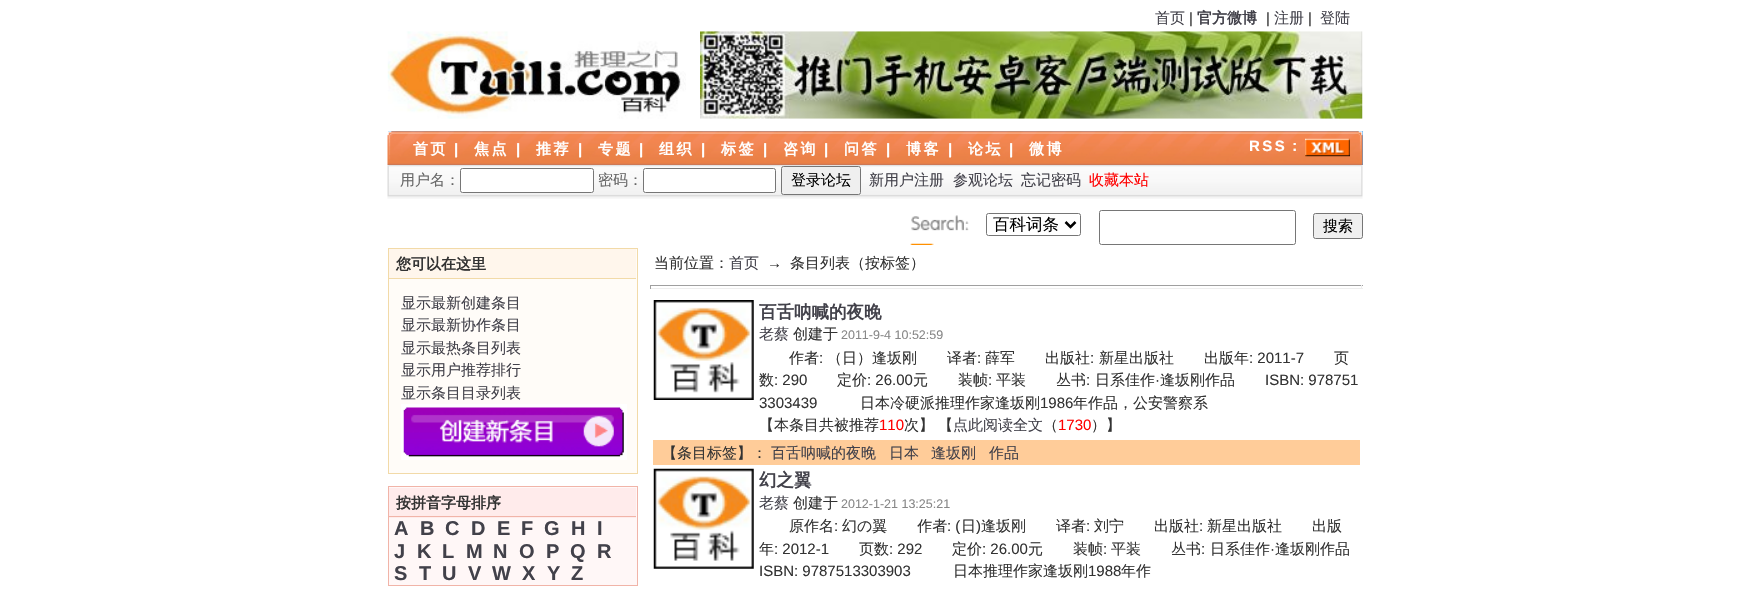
static SkFont makeFont(const char* family, int weight, float size, bool italic = false) {
  SkFontStyle style(weight, SkFontStyle::kNormal_Width,
    italic ? SkFontStyle::kItalic_Slant : SkFontStyle::kUpright_Slant);
  SkFont result(fontMgr->matchFamilyStyle(family, style), size);
  result.setSubpixel(true);
  return result;
}

static void text(SkCanvas* c, const char* s, float x, float y, const SkFont& font, SkColor color) {
  SkPaint ink(SkColor4f::FromColor(color));
  ink.setAntiAlias(true);
  c->drawString(s, x, y, font, ink);
}

static void spacedText(SkCanvas* c, const char* s, float x, float y, const SkFont& font, const SkPaint& ink, float letter, float word) {
  std::vector<SkGlyphID> glyphs(font.countText(s, strlen(s), SkTextEncoding::kUTF8));
  std::vector<float> xs(glyphs.size());
  font.textToGlyphs(s, strlen(s), SkTextEncoding::kUTF8, glyphs);
  font.getXPos(glyphs, xs, x);
  float extra = 0;
  for (size_t i = 0; i < glyphs.size(); i++) {
    xs[i] += extra;
    extra += letter + word * (glyphs[i] == font.unicharToGlyph(' '));
  }
  c->drawTextBlob(SkTextBlob::MakeFromPosHGlyphs(glyphs, xs, y, font), 0, 0, ink);
}

static void box(SkCanvas* c, float l, float t, float r, float b, SkColor color) {
  SkPaint ink(SkColor4f::FromColor(color));
  ink.setAntiAlias(true);
  c->drawRect(SkRect::MakeLTRB(l, t, r, b), ink);
}

static void picture(SkCanvas* c, const char* path, float l, float t, float r, float b) {
  auto image = SkImages::DeferredFromEncodedData(SkData::MakeFromFileName(path));
  c->drawImageRect(image, SkRect::MakeLTRB(l, t, r, b), SkSamplingOptions());
}

void draw(SkCanvas* c) {
  SkPaint paint;
  paint.setAntiAlias(true);
  c->clear(0xffffffff);
  SkFont face1 = makeFont("WenQuanYi Zen Hei", 500, 15);
  text(c, "首页", 1155, 23, face1, 0xff42414a);
  SkFont face2 = makeFont("Liberation Sans", 400, 15);
  text(c, "|", 1189, 23, face2, 0xff333333);
  SkFont face3 = makeFont("WenQuanYi Zen Hei", 700, 15);
  text(c, "官方微博", 1197, 23, face3, 0xff42414a);
  text(c, "|", 1266, 23, face2, 0xff333333);
  text(c, "注册", 1274, 23, face1, 0xff42414a);
  text(c, "|", 1308, 23, face2, 0xff333333);
  text(c, "登陆", 1320, 23, face1, 0xff42414a);
  picture(c, "img_01.png", 387, 31, 686, 119);
  picture(c, "img_02.png", 700, 31, 1363, 119);
  box(c, 388, 131, 1363, 165, 0xff3697ea);
  picture(c, "img_03.png", 387, 131, 1363, 165);
  paint.setColor(0xffffffff);
  spacedText(c, "首页", 413, 154, face3, paint, 2.5f, 0);
  SkFont face4 = makeFont("Liberation Sans", 700, 15);
  spacedText(c, "|", 454, 154, face4, paint, 2.5f, 0);
  spacedText(c, "焦点", 474, 154, face3, paint, 2.5f, 0);
  spacedText(c, "|", 516, 154, face4, paint, 2.5f, 0);
  spacedText(c, "推荐", 536, 154, face3, paint, 2.5f, 0);
  spacedText(c, "|", 578, 154, face4, paint, 2.5f, 0);
  spacedText(c, "专题", 598, 154, face3, paint, 2.5f, 0);
  spacedText(c, "|", 639, 154, face4, paint, 2.5f, 0);
  spacedText(c, "组织", 659, 154, face3, paint, 2.5f, 0);
  spacedText(c, "|", 701, 154, face4, paint, 2.5f, 0);
  spacedText(c, "标签", 721, 154, face3, paint, 2.5f, 0);
  spacedText(c, "|", 763, 154, face4, paint, 2.5f, 0);
  spacedText(c, "咨询", 783, 154, face3, paint, 2.5f, 0);
  spacedText(c, "|", 824, 154, face4, paint, 2.5f, 0);
  spacedText(c, "问答", 844, 154, face3, paint, 2.5f, 0);
  spacedText(c, "|", 886, 154, face4, paint, 2.5f, 0);
  spacedText(c, "博客", 906, 154, face3, paint, 2.5f, 0);
  spacedText(c, "|", 948, 154, face4, paint, 2.5f, 0);
  spacedText(c, "论坛", 968, 154, face3, paint, 2.5f, 0);
  spacedText(c, "|", 1009, 154, face4, paint, 2.5f, 0);
  spacedText(c, "微博", 1029, 154, face3, paint, 2.5f, 0);
  spacedText(c, "RSS", 1249, 151, face4, paint, 2.5f, 0);
  spacedText(c, "：", 1287, 151, face3, paint, 2.5f, 0);
  picture(c, "img_04.png", 1305, 138, 1350, 157);
  picture(c, "img_05.png", 387, 165, 1363, 199);
  text(c, "用户名：", 400, 185, face1, 0xff666666);
  c->drawRoundRect(SkRect::MakeLTRB(460.5f, 168.5f, 593.5f, 192.5f), 2, 2, paint);
  paint.setStyle(SkPaint::kStroke_Style);
  paint.setStrokeWidth(1);
  paint.setColor(0xff767676);
  c->drawRoundRect(SkRect::MakeLTRB(460.5f, 168.5f, 593.5f, 192.5f), 2, 2, paint);
  text(c, "密码：", 598, 185, face1, 0xff666666);
  paint.setStyle(SkPaint::kFill_Style);
  paint.setColor(0xffffffff);
  c->drawRoundRect(SkRect::MakeLTRB(643.5f, 168.5f, 775.5f, 192.5f), 2, 2, paint);
  paint.setStyle(SkPaint::kStroke_Style);
  paint.setColor(0xff767676);
  c->drawRoundRect(SkRect::MakeLTRB(643.5f, 168.5f, 775.5f, 192.5f), 2, 2, paint);
  paint.setStyle(SkPaint::kFill_Style);
  paint.setColor(0xffefefef);
  c->drawRoundRect(SkRect::MakeLTRB(781.5f, 166.5f, 860.5f, 194.5f), 2, 2, paint);
  paint.setStyle(SkPaint::kStroke_Style);
  paint.setColor(0xff767676);
  c->drawRoundRect(SkRect::MakeLTRB(781.5f, 166.5f, 860.5f, 194.5f), 2, 2, paint);
  text(c, "登录论坛", 791, 185, face1, 0xff000000);
  text(c, "新用户注册", 869, 185, face1, 0xff42414a);
  text(c, "参观论坛", 953, 185, face1, 0xff42414a);
  text(c, "忘记密码", 1021, 185, face1, 0xff42414a);
  text(c, "收藏本站", 1089, 185, face1, 0xffff0000);
  picture(c, "img_06.png", 910, 215, 969, 245);
  c->drawRoundRect(SkRect::MakeLTRB(986.5f, 213.5f, 1080.5f, 235.5f), 2, 2, paint);
  paint.setStrokeWidth(2.5f);
  paint.setColor(0xff000000);
  c->drawPath(SkPathBuilder().moveTo(1065.5f, 222).lineTo(1070.5f, 227).lineTo(1075.5f, 222).detach(), paint);
  SkFont face5 = makeFont("WenQuanYi Zen Hei", 500, 16.5f);
  text(c, "百科词条", 993, 230, face5, 0xff000000);
  paint.setStrokeWidth(1);
  paint.setColor(0xff767676);
  c->drawRoundRect(SkRect::MakeLTRB(1099.5f, 210.5f, 1295.5f, 244.5f), 2, 2, paint);
  paint.setStyle(SkPaint::kFill_Style);
  paint.setColor(0xffefefef);
  c->drawRoundRect(SkRect::MakeLTRB(1313.5f, 213.5f, 1362.5f, 238.5f), 2, 2, paint);
  paint.setStyle(SkPaint::kStroke_Style);
  paint.setColor(0xff767676);
  c->drawRoundRect(SkRect::MakeLTRB(1313.5f, 213.5f, 1362.5f, 238.5f), 2, 2, paint);
  text(c, "搜索", 1323, 231, face1, 0xff000000);
  paint.setStyle(SkPaint::kFill_Style);
  paint.setColor(0xfffffcf8);
  c->drawRect(SkRect::MakeLTRB(388.5f, 248.5f, 637.5f, 473.5f), paint);
  paint.setStyle(SkPaint::kStroke_Style);
  paint.setColor(0xfff2daa8);
  c->drawRect(SkRect::MakeLTRB(388.5f, 248.5f, 637.5f, 473.5f), paint);
  box(c, 389, 249, 636, 278, 0xfffff6ec);
  box(c, 389, 278, 636, 279, 0xfff2daa8);
  text(c, "您可以在这里", 396, 269, face3, 0xff333333);
  text(c, "显示最新创建条目", 401, 308, face1, 0xff42414a);
  text(c, "显示最新协作条目", 401, 330, face1, 0xff42414a);
  text(c, "显示最热条目列表", 401, 353, face1, 0xff42414a);
  text(c, "显示用户推荐排行", 401, 375, face1, 0xff42414a);
  text(c, "显示条目目录列表", 401, 398, face1, 0xff42414a);
  picture(c, "img_07.png", 401, 404, 627, 460);
  paint.setStyle(SkPaint::kFill_Style);
  paint.setColor(0xfffff7f7);
  c->drawRect(SkRect::MakeLTRB(388.5f, 486.5f, 637.5f, 585.5f), paint);
  paint.setStyle(SkPaint::kStroke_Style);
  paint.setColor(0xfff1b4a8);
  c->drawRect(SkRect::MakeLTRB(388.5f, 486.5f, 637.5f, 585.5f), paint);
  box(c, 389, 488, 636, 518, 0xffffebeb);
  box(c, 389, 516, 636, 517, 0xfff1b4a8);
  text(c, "按拼音字母排序", 396, 508, face3, 0xff333333);
  SkFont face6 = makeFont("Liberation Sans", 700, 20);
  text(c, "A", 394, 535, face6, 0xff42414a);
  text(c, "B", 420, 535, face6, 0xff42414a);
  text(c, "C", 445, 535, face6, 0xff42414a);
  text(c, "D", 471, 535, face6, 0xff42414a);
  text(c, "E", 497, 535, face6, 0xff42414a);
  text(c, "F", 521, 535, face6, 0xff42414a);
  text(c, "G", 544, 535, face6, 0xff42414a);
  text(c, "H", 571, 535, face6, 0xff42414a);
  text(c, "I", 597, 535, face6, 0xff42414a);
  text(c, "J", 394, 558, face6, 0xff42414a);
  text(c, "K", 417, 558, face6, 0xff42414a);
  text(c, "L", 442, 558, face6, 0xff42414a);
  text(c, "M", 466, 558, face6, 0xff42414a);
  text(c, "N", 493, 558, face6, 0xff42414a);
  text(c, "O", 519, 558, face6, 0xff42414a);
  text(c, "P", 546, 558, face6, 0xff42414a);
  text(c, "Q", 570, 558, face6, 0xff42414a);
  text(c, "R", 597, 558, face6, 0xff42414a);
  text(c, "S", 394, 580, face6, 0xff42414a);
  text(c, "T", 419, 580, face6, 0xff42414a);
  text(c, "U", 442, 580, face6, 0xff42414a);
  text(c, "V", 468, 580, face6, 0xff42414a);
  text(c, "W", 492, 580, face6, 0xff42414a);
  text(c, "X", 522, 580, face6, 0xff42414a);
  text(c, "Y", 547, 580, face6, 0xff42414a);
  text(c, "Z", 571, 580, face6, 0xff42414a);
  text(c, "当前位置：", 654, 268, face1, 0xff333333);
  text(c, "首页", 729, 268, face1, 0xff42414a);
  text(c, "→", 767, 268, face2, 0xff333333);
  text(c, "条目列表（按标签）", 790, 268, face1, 0xff333333);
  box(c, 650, 285, 1363, 286, 0xff9f9f9f);
  box(c, 1361, 285, 1362, 289, 0xffeeeeee);
  box(c, 650, 288, 1363, 289, 0xffeeeeee);
  box(c, 650, 285, 651, 289, 0xff9f9f9f);
  picture(c, "img_08.png", 653, 300, 754, 400);
  SkFont face7 = makeFont("WenQuanYi Zen Hei", 700, 17.5f);
  text(c, "百舌呐喊的夜晚", 759, 318, face7, 0xff42414a);
  text(c, "老蔡", 759, 339, face1, 0xff42414a);
  text(c, "创建于", 793, 339, face1, 0xff333333);
  SkFont face8 = makeFont("Liberation Sans", 400, 12.5f);
  text(c, "2011-9-4 10:52:59", 841, 339, face8, 0xff888888);
  text(c, "作者", 789, 363, face1, 0xff333333);
  text(c, ":", 819, 363, face2, 0xff333333);
  text(c, "（日）逢坂刚　　译者", 827, 363, face1, 0xff333333);
  text(c, ":", 977, 363, face2, 0xff333333);
  text(c, "薛军　　出版社", 985, 363, face1, 0xff333333);
  text(c, ":", 1090, 363, face2, 0xff333333);
  text(c, "新星出版社　　出版年", 1099, 363, face1, 0xff333333);
  text(c, ": 2011-7", 1249, 363, face2, 0xff333333);
  text(c, "页", 1334, 363, face1, 0xff333333);
  text(c, "数", 759, 385, face1, 0xff333333);
  text(c, ": 290", 774, 385, face2, 0xff333333);
  text(c, "定价", 837, 385, face1, 0xff333333);
  text(c, ": 26.00", 867, 385, face2, 0xff333333);
  text(c, "元　　装帧", 913, 385, face1, 0xff333333);
  text(c, ":", 988, 385, face2, 0xff333333);
  text(c, "平装　　丛书", 996, 385, face1, 0xff333333);
  text(c, ":", 1086, 385, face2, 0xff333333);
  text(c, "日系佳作", 1095, 385, face1, 0xff333333);
  text(c, "·", 1155, 385, face2, 0xff333333);
  text(c, "逢坂刚作品", 1160, 385, face1, 0xff333333);
  text(c, "ISBN: 978751", 1265, 385, face2, 0xff333333);
  text(c, "3303439", 759, 408, face2, 0xff333333);
  text(c, "日本冷硬派推理作家逢坂刚", 860, 408, face1, 0xff333333);
  text(c, "1986", 1040, 408, face2, 0xff333333);
  text(c, "年作品，公安警察系", 1073, 408, face1, 0xff333333);
  text(c, "【本条目共被推荐", 759, 430, face1, 0xff333333);
  text(c, "110", 879, 430, face2, 0xffff0000);
  text(c, "次】", 904, 430, face1, 0xff333333);
  text(c, "【", 938, 430, face1, 0xff333333);
  text(c, "点此阅读全文", 953, 430, face1, 0xff42414a);
  text(c, "（", 1043, 430, face1, 0xff333333);
  text(c, "1730", 1058, 430, face2, 0xffff0000);
  text(c, "）】", 1091, 430, face1, 0xff333333);
  box(c, 653, 440, 1360, 465, 0xffffcc99);
  text(c, "【条目标签】：", 662, 458, face1, 0xff333333);
  text(c, "百舌呐喊的夜晚", 771, 458, face1, 0xff42414a);
  text(c, "日本", 889, 458, face1, 0xff42414a);
  text(c, "逢坂刚", 931, 458, face1, 0xff42414a);
  text(c, "作品", 989, 458, face1, 0xff42414a);
  picture(c, "img_09.png", 653, 468, 754, 569);
  text(c, "幻之翼", 759, 486, face7, 0xff42414a);
  text(c, "老蔡", 759, 508, face1, 0xff42414a);
  text(c, "创建于", 793, 508, face1, 0xff333333);
  text(c, "2012-1-21 13:25:21", 841, 508, face8, 0xff888888);
  text(c, "原作名", 789, 531, face1, 0xff333333);
  text(c, ":", 834, 531, face2, 0xff333333);
  text(c, "幻の翼　　作者", 842, 531, face1, 0xff333333);
  text(c, ": (", 947, 531, face2, 0xff333333);
  text(c, "日", 961, 531, face1, 0xff333333);
  text(c, ")", 976, 531, face2, 0xff333333);
  text(c, "逢坂刚　　译者", 981, 531, face1, 0xff333333);
  text(c, ":", 1086, 531, face2, 0xff333333);
  text(c, "刘宁　　出版社", 1094, 531, face1, 0xff333333);
  text(c, ":", 1199, 531, face2, 0xff333333);
  text(c, "新星出版社　　出版", 1207, 531, face1, 0xff333333);
  text(c, "年", 759, 554, face1, 0xff333333);
  text(c, ": 2012-1", 774, 554, face2, 0xff333333);
  text(c, "页数", 859, 554, face1, 0xff333333);
  text(c, ": 292", 889, 554, face2, 0xff333333);
  text(c, "定价", 952, 554, face1, 0xff333333);
  text(c, ": 26.00", 982, 554, face2, 0xff333333);
  text(c, "元　　装帧", 1028, 554, face1, 0xff333333);
  text(c, ":", 1103, 554, face2, 0xff333333);
  text(c, "平装　　丛书", 1111, 554, face1, 0xff333333);
  text(c, ":", 1201, 554, face2, 0xff333333);
  text(c, "日系佳作", 1210, 554, face1, 0xff333333);
  text(c, "·", 1270, 554, face2, 0xff333333);
  text(c, "逢坂刚作品", 1275, 554, face1, 0xff333333);
  text(c, "ISBN: 9787513303903", 759, 576, face2, 0xff333333);
  text(c, "日本推理作家逢坂刚", 953, 576, face1, 0xff333333);
  text(c, "1988", 1088, 576, face2, 0xff333333);
  text(c, "年作", 1121, 576, face1, 0xff333333);
}
